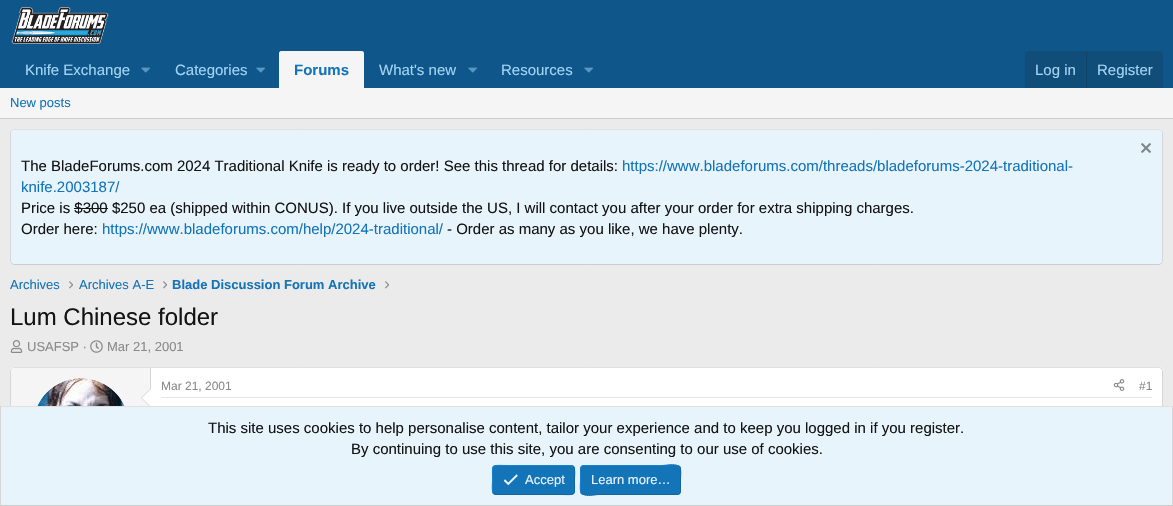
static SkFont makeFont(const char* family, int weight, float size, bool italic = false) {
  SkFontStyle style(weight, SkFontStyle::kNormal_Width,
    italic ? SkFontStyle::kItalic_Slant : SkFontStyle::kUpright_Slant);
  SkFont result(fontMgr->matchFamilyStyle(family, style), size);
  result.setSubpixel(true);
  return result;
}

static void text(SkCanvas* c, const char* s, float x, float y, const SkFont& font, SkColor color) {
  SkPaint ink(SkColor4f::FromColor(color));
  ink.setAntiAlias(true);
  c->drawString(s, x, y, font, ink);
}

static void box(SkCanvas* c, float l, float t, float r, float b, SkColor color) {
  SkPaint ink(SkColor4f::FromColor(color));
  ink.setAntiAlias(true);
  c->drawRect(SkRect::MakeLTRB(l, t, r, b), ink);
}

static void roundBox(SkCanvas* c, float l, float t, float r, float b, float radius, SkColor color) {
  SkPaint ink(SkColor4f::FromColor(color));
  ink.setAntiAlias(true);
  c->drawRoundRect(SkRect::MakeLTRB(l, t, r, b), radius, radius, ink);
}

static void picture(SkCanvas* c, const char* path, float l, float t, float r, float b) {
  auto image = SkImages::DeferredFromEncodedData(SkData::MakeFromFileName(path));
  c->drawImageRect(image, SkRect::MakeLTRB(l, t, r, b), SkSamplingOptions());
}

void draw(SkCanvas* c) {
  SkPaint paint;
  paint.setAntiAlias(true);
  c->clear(0xffebebeb);
  box(c, 0, 0, 1173, 88, 0xff0f578a);
  picture(c, "img_01.png", 11, 7, 109, 44);
  SkFont face1 = makeFont("Liberation Sans", 400, 15);
  text(c, "Knife Exchange", 25, 75, face1, 0xffa3d4f5);
  picture(c, "img_02.png", 141, 67, 150, 73);
  text(c, "Categories", 175, 75, face1, 0xffa3d4f5);
  picture(c, "img_02.png", 256, 67, 265, 73);
  paint.setColor(0xfff5f5f5);
  c->drawPath(SkPathBuilder().moveTo(281, 51).lineTo(362, 51).cubicTo(363, 51, 364, 52, 364, 53).lineTo(364, 88).lineTo(279, 88).lineTo(279, 53).cubicTo(279, 52, 280, 51, 281, 51).close().detach(), paint);
  SkFont face2 = makeFont("Liberation Sans", 700, 15);
  text(c, "Forums", 294, 75, face2, 0xff1474b8);
  text(c, "What's new", 379, 75, face1, 0xffa3d4f5);
  picture(c, "img_02.png", 468, 67, 477, 73);
  text(c, "Resources", 501, 75, face1, 0xffa3d4f5);
  picture(c, "img_02.png", 584, 67, 593, 73);
  paint.setColor(0xff104d78);
  c->drawPath(SkPathBuilder().moveTo(1029, 51).lineTo(1159, 51).cubicTo(1161, 51, 1163, 53, 1163, 55).lineTo(1163, 88).lineTo(1025, 88).lineTo(1025, 55).cubicTo(1025, 53, 1027, 51, 1029, 51).close().detach(), paint);
  text(c, "Log in", 1035, 75, face1, 0xffa3d4f5);
  box(c, 1086, 51, 1087, 88, 0xff114469);
  text(c, "Register", 1097, 75, face1, 0xffa3d4f5);
  box(c, 0, 88, 1173, 118, 0xfff5f5f5);
  box(c, 0, 118, 1173, 119, 0xffcccccc);
  SkFont face3 = makeFont("Liberation Sans", 400, 13);
  text(c, "New posts", 10, 107, face3, 0xff1474b8);
  roundBox(c, 10, 129, 1163, 265, 4, 0xffe8f4fc);
  paint.setStyle(SkPaint::kStroke_Style);
  paint.setStrokeWidth(1);
  paint.setColor(0xffe0e0e0);
  c->drawPath(SkPathBuilder().moveTo(11.5f, 130.5f).lineTo(14, 129.5f).lineTo(1159, 129.5f).lineTo(1161.5f, 130.5f).detach(), paint);
  paint.setColor(0xffd6d6d6);
  c->drawPath(SkPathBuilder().moveTo(1161.5f, 130.5f).cubicTo(1162, 131, 1162.5f, 132, 1162.5f, 133).lineTo(1162.5f, 261).cubicTo(1162.5f, 262, 1162, 263, 1161.5f, 263.5f).detach(), paint);
  paint.setColor(0xffcccccc);
  c->drawPath(SkPathBuilder().moveTo(1161.5f, 263.5f).lineTo(1159, 264.5f).lineTo(14, 264.5f).lineTo(11.5f, 263.5f).detach(), paint);
  paint.setColor(0xffd6d6d6);
  c->drawPath(SkPathBuilder().moveTo(11.5f, 263.5f).cubicTo(11, 263, 10.5f, 262, 10.5f, 261).lineTo(10.5f, 133).cubicTo(10.5f, 132, 11, 131, 11.5f, 130.5f).detach(), paint);
  picture(c, "img_03.png", 1141, 143, 1151, 153);
  text(c, "The BladeForums.com 2024 Traditional Knife is ready to order! See this thread for details:", 21, 171, face1, 0xff141414);
  text(c, "https://www.bladeforums.com/threads/bladeforums-2024-traditional-", 622, 171, face1, 0xff1474b8);
  text(c, "knife.2003187/", 21, 192, face1, 0xff1474b8);
  text(c, "Price is $300 $250 ea (shipped within CONUS). If you live outside the US, I will contact you after your order for extra shipping charges.", 21, 213, face1, 0xff141414);
  box(c, 74, 208, 108, 209, 0xff141414);
  text(c, "Order here:", 21, 234, face1, 0xff141414);
  text(c, "https://www.bladeforums.com/help/2024-traditional/", 102, 234, face1, 0xff1474b8);
  text(c, "- Order as many as you like, we have plenty.", 447, 234, face1, 0xff141414);
  text(c, "Archives", 10, 289, face3, 0xff1474b8);
  picture(c, "img_04.png", 69, 281, 73, 289);
  text(c, "Archives A-E", 79, 289, face3, 0xff1474b8);
  picture(c, "img_04.png", 163, 281, 167, 289);
  SkFont face4 = makeFont("Liberation Sans", 700, 13);
  text(c, "Blade Discussion Forum Archive", 172, 289, face4, 0xff1474b8);
  picture(c, "img_04.png", 385, 281, 389, 289);
  SkFont face5 = makeFont("Liberation Sans", 400, 24);
  text(c, "Lum Chinese folder", 10, 325, face5, 0xff141414);
  picture(c, "img_05.png", 10, 340, 23, 353);
  text(c, "USAFSP ·", 27, 351, face3, 0xff8a8a8a);
  picture(c, "img_06.png", 90, 340, 103, 353);
  text(c, "Mar 21, 2001", 107, 351, face3, 0xff8a8a8a);
  roundBox(c, 10, 367, 1163, 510, 4, 0xffffffff);
  paint.setColor(0xffe0e0e0);
  c->drawPath(SkPathBuilder().moveTo(11.5f, 368.5f).lineTo(14, 367.5f).lineTo(1159, 367.5f).lineTo(1161.5f, 368.5f).detach(), paint);
  paint.setColor(0xffd6d6d6);
  c->drawPath(SkPathBuilder().moveTo(1161.5f, 368.5f).lineTo(1162.5f, 370.5f).lineTo(1162.5f, 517).lineTo(1162.5f, 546).lineTo(1161.5f, 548.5f).detach(), paint);
  c->drawPath(SkPathBuilder().moveTo(11.5f, 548.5f).lineTo(10.5f, 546).lineTo(10.5f, 370.5f).lineTo(11.5f, 368.5f).detach(), paint);
  paint.setStyle(SkPaint::kFill_Style);
  paint.setColor(0xfff5f5f5);
  c->drawPath(SkPathBuilder().moveTo(14, 368).lineTo(151, 368).lineTo(151, 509).lineTo(14, 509).cubicTo(12.5f, 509, 11, 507.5f, 11, 506).lineTo(11, 371).cubicTo(11, 369.5f, 12.5f, 368, 14, 368).close().detach(), paint);
  box(c, 150, 368, 151, 389, 0xffd6d6d6);
  paint.setColor(0xffffffff);
  c->drawCircle(81, 426, 48, paint);
  picture(c, "img_07.png", 37, 378, 125, 406);
  paint.setColor(0xffd6d6d6);
  c->drawPath(SkPathBuilder().moveTo(151, 388).lineTo(151, 408).lineTo(141, 398).close().detach(), paint);
  paint.setColor(0xffffffff);
  c->drawPath(SkPathBuilder().moveTo(151, 389).lineTo(151, 407).lineTo(142, 398).close().detach(), paint);
  box(c, 161, 397, 1152, 398, 0xffe5e5e5);
  SkFont face6 = makeFont("Liberation Sans", 400, 12);
  text(c, "Mar 21, 2001", 161, 390, face6, 0xff8a8a8a);
  picture(c, "img_08.png", 1113, 379, 1125, 391);
  text(c, "#1", 1139, 390, face6, 0xff8a8a8a);
  box(c, 1, 407, 1172, 505, 0xffe8f4fc);
  box(c, 0, 406, 1173, 407, 0xffe0e0e0);
  box(c, 1172, 406, 1173, 506, 0xffd6d6d6);
  box(c, 0, 505, 1173, 506, 0xffcccccc);
  box(c, 0, 406, 1, 506, 0xffd6d6d6);
  text(c, "This site uses cookies to help personalise content, tailor your experience and to keep you logged in if you register.", 208, 433, face1, 0xff141414);
  text(c, "By continuing to use this site, you are consenting to our use of cookies.", 351, 454, face1, 0xff141414);
  roundBox(c, 492, 465, 575, 495, 4, 0xff1474b8);
  paint.setStyle(SkPaint::kStroke_Style);
  paint.setColor(0xff1265a1);
  c->drawPath(SkPathBuilder().moveTo(573.5f, 466.5f).cubicTo(575.5f, 468.5f, 574.5f, 477, 574.5f, 480).cubicTo(574.5f, 497, 576.5f, 494.5f, 558.5f, 494.5f).lineTo(496, 494.5f).lineTo(493.5f, 493.5f).detach(), paint);
  paint.setColor(0xff1782cf);
  c->drawPath(SkPathBuilder().moveTo(493.5f, 493.5f).cubicTo(491.5f, 491.5f, 492.5f, 483, 492.5f, 480).cubicTo(492.5f, 463, 490.5f, 465.5f, 508.5f, 465.5f).lineTo(571, 465.5f).lineTo(573.5f, 466.5f).detach(), paint);
  picture(c, "img_09.png", 503, 474, 518, 486);
  text(c, "Accept", 525, 484, face3, 0xffe8f4fc);
  roundBox(c, 580, 465, 681, 495, 4, 0xff1474b8);
  paint.setColor(0xff1265a1);
  c->drawPath(SkPathBuilder().moveTo(679.5f, 466.5f).cubicTo(681.5f, 468.5f, 680.5f, 477, 680.5f, 480).lineTo(680.5f, 487.5f).cubicTo(680.5f, 490, 681, 494.5f, 677, 494.5f).lineTo(599.5f, 494.5f).cubicTo(594, 494.5f, 587.5f, 497, 582.5f, 494).lineTo(581.5f, 493.5f).detach(), paint);
  paint.setColor(0xff1782cf);
  c->drawPath(SkPathBuilder().moveTo(581.5f, 493.5f).cubicTo(579.5f, 491.5f, 580.5f, 483, 580.5f, 480).lineTo(580.5f, 472.5f).cubicTo(580.5f, 470, 580, 465.5f, 584, 465.5f).lineTo(661.5f, 465.5f).cubicTo(667, 465.5f, 673.5f, 463, 678.5f, 466).lineTo(679.5f, 466.5f).detach(), paint);
  text(c, "Learn more…", 591, 484, face3, 0xffe8f4fc);
}
